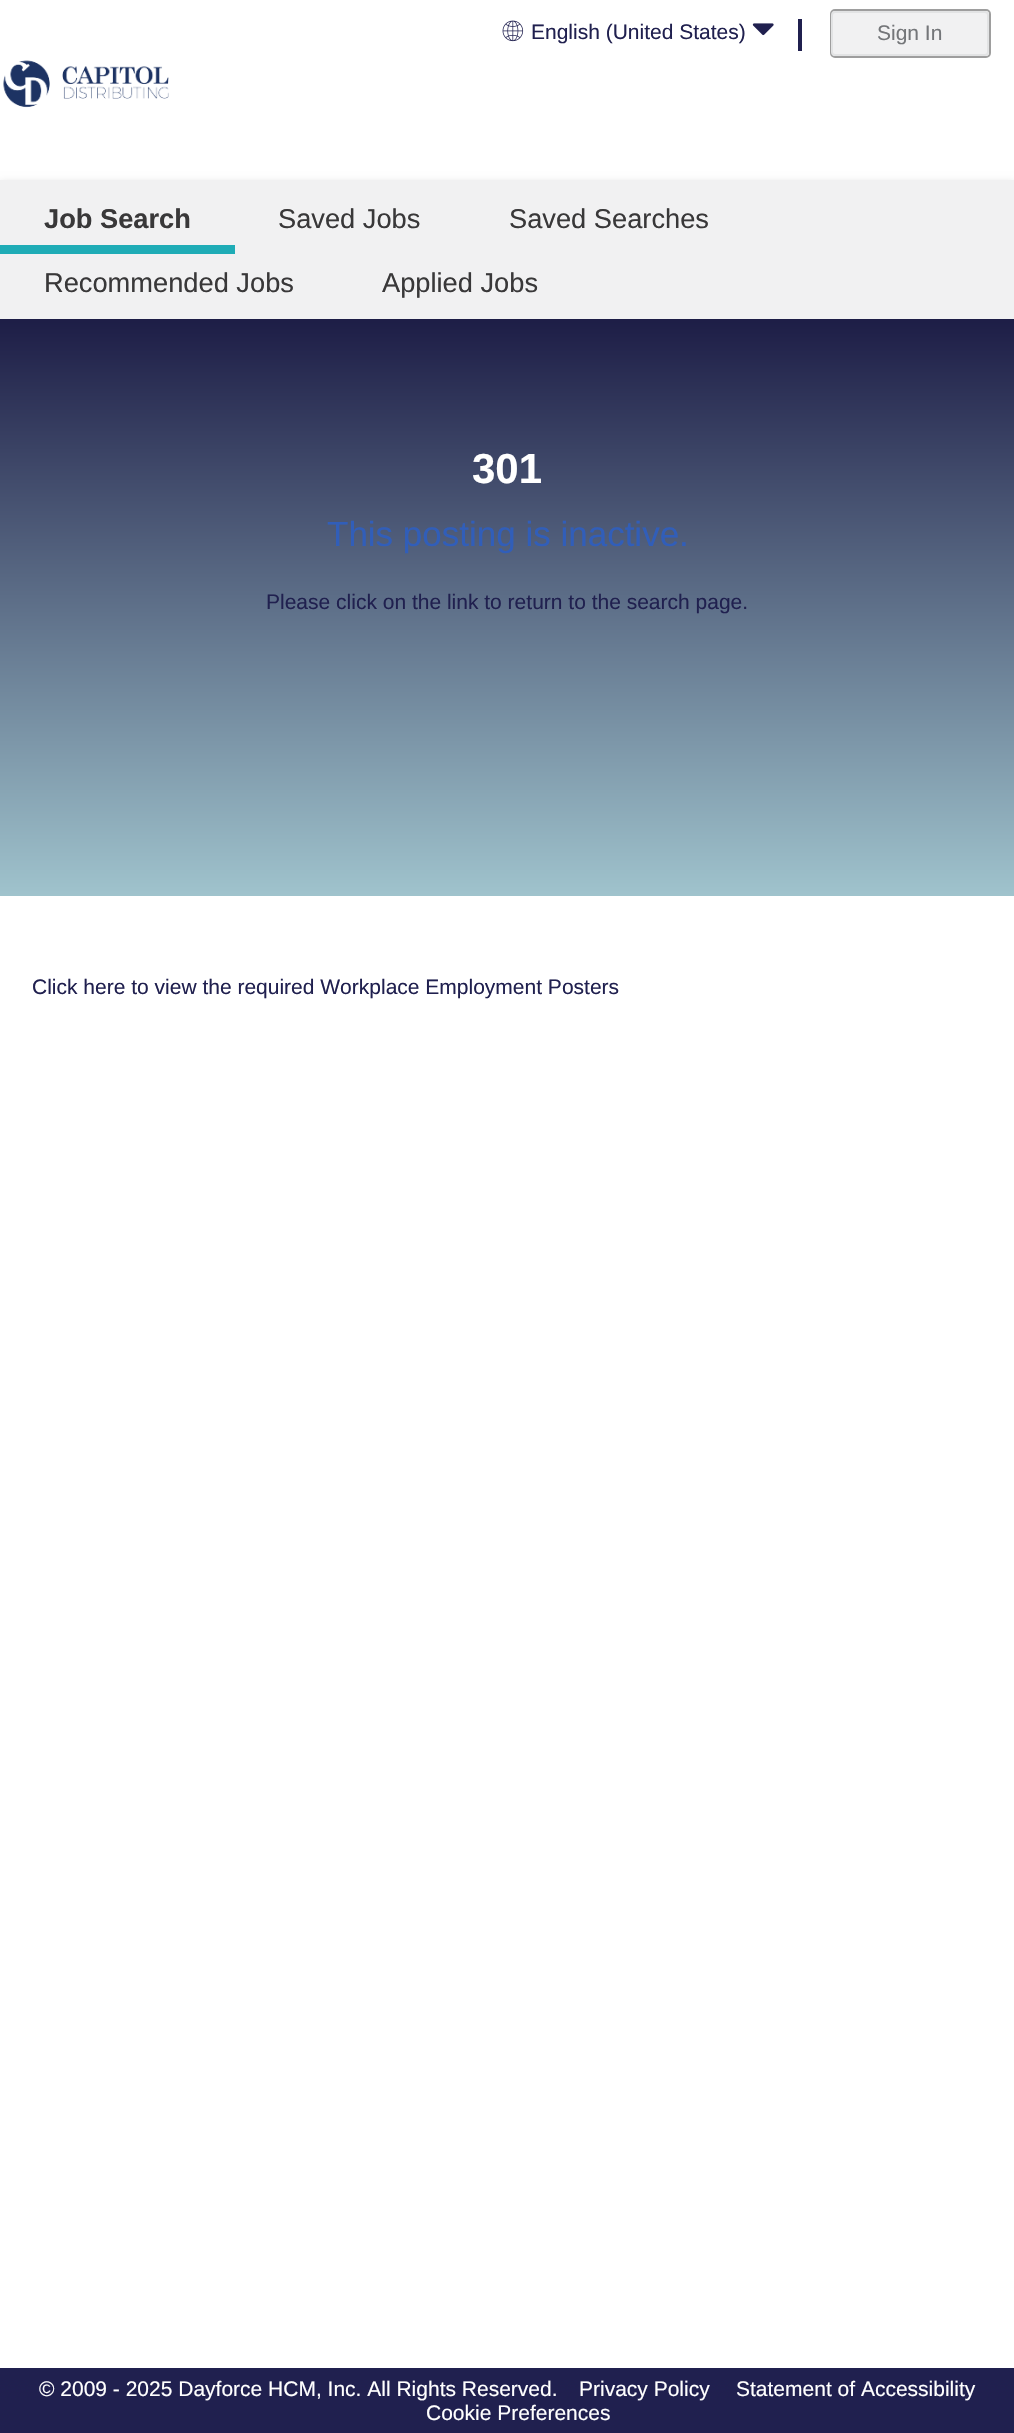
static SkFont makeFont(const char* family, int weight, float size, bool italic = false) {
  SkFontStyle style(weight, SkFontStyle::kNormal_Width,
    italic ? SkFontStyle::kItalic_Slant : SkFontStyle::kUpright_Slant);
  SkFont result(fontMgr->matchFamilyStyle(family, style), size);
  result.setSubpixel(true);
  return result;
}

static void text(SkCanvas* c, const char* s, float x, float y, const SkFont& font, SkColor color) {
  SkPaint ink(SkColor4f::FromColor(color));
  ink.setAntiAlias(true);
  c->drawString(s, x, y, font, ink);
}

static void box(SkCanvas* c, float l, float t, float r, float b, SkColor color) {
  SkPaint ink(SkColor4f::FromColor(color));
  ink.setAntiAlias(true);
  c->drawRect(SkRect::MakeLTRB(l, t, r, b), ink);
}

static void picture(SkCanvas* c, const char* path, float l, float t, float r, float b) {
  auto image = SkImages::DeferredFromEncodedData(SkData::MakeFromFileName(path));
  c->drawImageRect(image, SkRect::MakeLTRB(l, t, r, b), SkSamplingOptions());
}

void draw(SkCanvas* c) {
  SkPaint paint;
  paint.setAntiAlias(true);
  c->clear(0xffffffff);
  picture(c, "img_01.png", 502, 20, 524, 42);
  SkFont face1 = makeFont("Liberation Sans", 400, 21);
  text(c, "English (United States)", 531, 39, face1, 0xff20204f);
  picture(c, "img_02.png", 752, 23, 774, 36);
  box(c, 798, 19, 802, 51, 0xff20204f);
  paint.setStyle(SkPaint::kStroke_Style);
  paint.setStrokeWidth(2);
  paint.setColor(0xff9e9e9e);
  c->drawRoundRect(SkRect::MakeLTRB(831, 10, 990, 57), 4, 4, paint);
  paint.setStyle(SkPaint::kFill_Style);
  paint.setColor(0xfff1f1f2);
  c->drawRoundRect(SkRect::MakeLTRB(832, 12, 988, 55), 3, 3, paint);
  paint.setStyle(SkPaint::kStroke_Style);
  paint.setColor(0xffe2e3e4);
  c->drawRoundRect(SkRect::MakeLTRB(832, 12, 988, 55), 3, 3, paint);
  text(c, "Sign In", 877, 40, face1, 0xff747679);
  picture(c, "img_03.png", 3, 60, 169, 108);
  paint.setStyle(SkPaint::kFill_Style);
  paint.setColor(0x33000000);
  paint.setMaskFilter(SkMaskFilter::MakeBlur(kNormal_SkBlurStyle, 4.5f));
  c->drawRect(SkRect::MakeLTRB(0, 184, 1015, 322), paint);
  paint.setMaskFilter(nullptr);
  box(c, 0, 180, 1014, 319, 0xfff1f1f2);
  box(c, 0, 245, 235, 254, 0xff1facb6);
  SkFont face2 = makeFont("Liberation Sans", 700, 27.25f);
  text(c, "Job Search", 44, 228, face2, 0xff393839);
  SkFont face3 = makeFont("Liberation Sans", 400, 27.25f);
  text(c, "Saved Jobs", 278, 228, face3, 0xff393839);
  text(c, "Saved Searches", 509, 228, face3, 0xff393839);
  text(c, "Recommended Jobs", 44, 292, face3, 0xff393839);
  text(c, "Applied Jobs", 382, 292, face3, 0xff393839);
  {
    const SkColor colors[] = {0xff1d1d46, 0xffbbe6e9};
    const float stops[] = {0, 1};
    const SkPoint ends[] = {{508, 318}, {508, 1018}};
    paint.setShader(SkGradientShader::MakeLinear(ends, colors, stops, 2, SkTileMode::kClamp));
    paint.setAlpha(255);
  }
  c->drawRect(SkRect::MakeLTRB(0, 319, 1014, 896), paint);
  SkFont face4 = makeFont("Liberation Sans", 700, 42);
  text(c, "301", 472, 483, face4, 0xffffffff);
  SkFont face5 = makeFont("Liberation Sans", 400, 35);
  text(c, "This posting is inactive.", 327, 546, face5, 0xff315eb9);
  text(c, "Please click on the link to return to the search page.", 266, 609, face1, 0xff20204f);
  text(c, "Click here to view the required Workplace Employment Posters", 32, 994, face1, 0xff20204f);
  box(c, 0, 2368, 1014, 2433, 0xff20204f);
  text(c, "© 2009 - 2025 Dayforce HCM, Inc. All Rights Reserved.", 39, 2396, face1, 0xffffffff);
  text(c, "Privacy Policy", 579, 2396, face1, 0xffffffff);
  text(c, "Statement of Accessibility", 736, 2396, face1, 0xffffffff);
  text(c, "Cookie Preferences", 426, 2420, face1, 0xffffffff);
}
